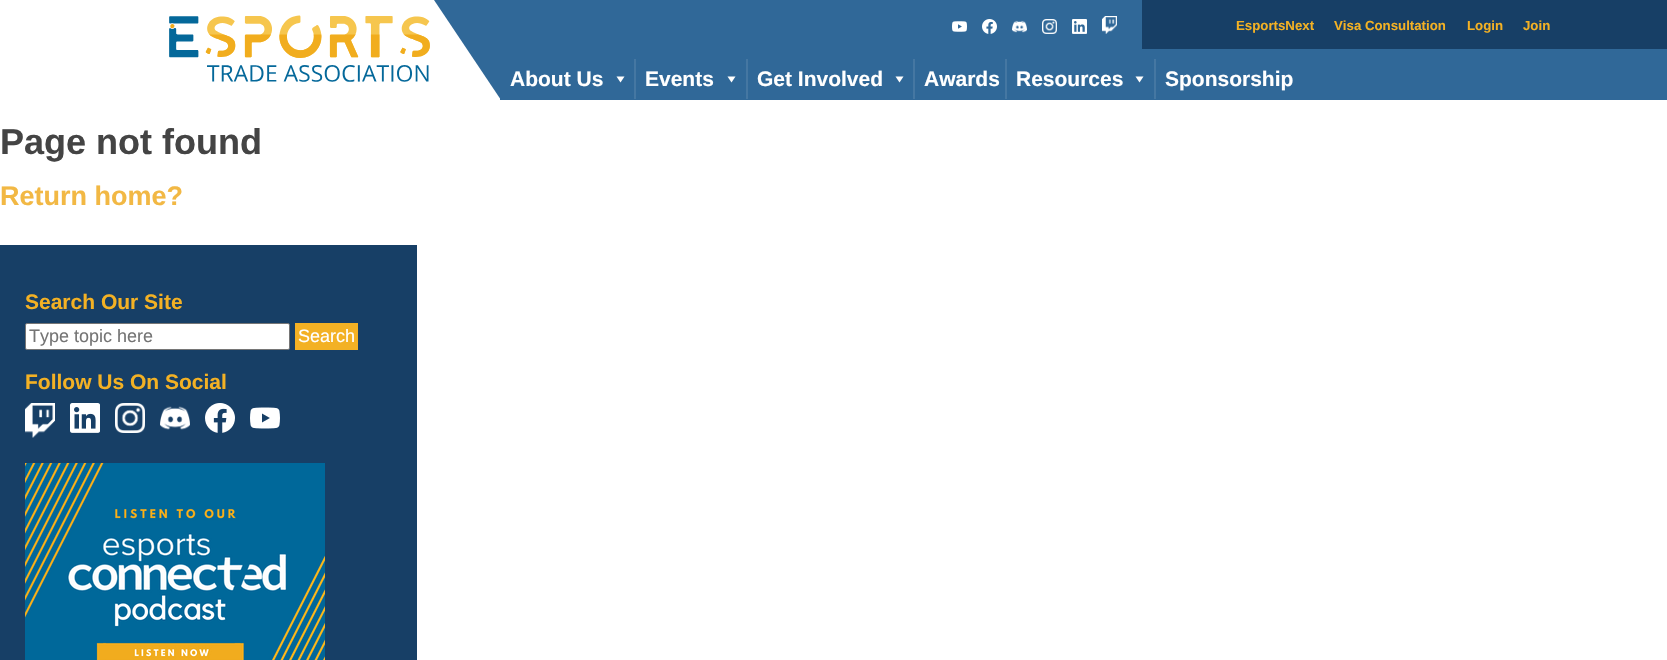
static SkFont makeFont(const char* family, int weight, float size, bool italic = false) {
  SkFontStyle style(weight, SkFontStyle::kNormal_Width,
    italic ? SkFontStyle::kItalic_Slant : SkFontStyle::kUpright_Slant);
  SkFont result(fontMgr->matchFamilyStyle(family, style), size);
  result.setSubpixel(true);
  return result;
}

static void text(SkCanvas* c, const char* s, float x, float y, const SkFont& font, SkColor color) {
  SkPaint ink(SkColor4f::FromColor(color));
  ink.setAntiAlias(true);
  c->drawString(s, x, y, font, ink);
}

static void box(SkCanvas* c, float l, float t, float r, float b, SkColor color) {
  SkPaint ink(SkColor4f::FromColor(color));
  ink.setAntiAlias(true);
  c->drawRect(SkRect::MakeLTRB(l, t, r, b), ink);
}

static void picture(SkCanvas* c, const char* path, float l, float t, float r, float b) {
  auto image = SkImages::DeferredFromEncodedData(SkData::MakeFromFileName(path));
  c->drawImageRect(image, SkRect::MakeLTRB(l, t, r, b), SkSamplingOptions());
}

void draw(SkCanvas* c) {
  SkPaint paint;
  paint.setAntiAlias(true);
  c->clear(0xffffffff);
  picture(c, "img_01.png", 169, 15, 430, 82);
  box(c, 500, 0, 1667, 100, 0xff306898);
  paint.setColor(0xff306898);
  c->drawPath(SkPathBuilder().moveTo(434, 0).lineTo(501, 100).lineTo(501, 0).close().detach(), paint);
  picture(c, "img_02.png", 952, 21, 967, 32);
  picture(c, "img_03.png", 982, 19, 997, 34);
  picture(c, "img_04.png", 1012, 20, 1027, 33);
  picture(c, "img_05.png", 1042, 19, 1057, 34);
  picture(c, "img_06.png", 1072, 19, 1087, 34);
  picture(c, "img_07.png", 1102, 16, 1117, 34);
  box(c, 1142, 0, 1667, 49, 0xff173f66);
  SkFont face1 = makeFont("Liberation Sans", 700, 13.25f);
  text(c, "EsportsNext", 1236, 30, face1, 0xfff3b124);
  text(c, "Visa Consultation", 1334, 30, face1, 0xfff3b124);
  text(c, "Login", 1467, 30, face1, 0xfff3b124);
  text(c, "Join", 1523, 30, face1, 0xfff3b124);
  SkFont face2 = makeFont("Liberation Sans", 700, 21);
  text(c, "About Us", 510, 86, face2, 0xffffffff);
  paint.setColor(0xffffffff);
  c->drawPath(SkPathBuilder().moveTo(624.5f, 76.5f).lineTo(620.5f, 82.5f).lineTo(616.5f, 76.5f).close().detach(), paint);
  box(c, 634, 59, 636, 99, 0xff4577a2);
  text(c, "Events", 645, 86, face2, 0xffffffff);
  c->drawPath(SkPathBuilder().moveTo(735.5f, 76.5f).lineTo(731.5f, 82.5f).lineTo(727.5f, 76.5f).close().detach(), paint);
  box(c, 746, 59, 748, 99, 0xff4577a2);
  text(c, "Get Involved", 757, 86, face2, 0xffffffff);
  c->drawPath(SkPathBuilder().moveTo(903.5f, 76.5f).lineTo(899.5f, 82.5f).lineTo(895.5f, 76.5f).close().detach(), paint);
  box(c, 913, 59, 915, 99, 0xff4577a2);
  text(c, "Awards", 924, 86, face2, 0xffffffff);
  box(c, 1005, 59, 1007, 99, 0xff4577a2);
  text(c, "Resources", 1016, 86, face2, 0xffffffff);
  c->drawPath(SkPathBuilder().moveTo(1143.5f, 76.5f).lineTo(1139.5f, 82.5f).lineTo(1135.5f, 76.5f).close().detach(), paint);
  box(c, 1154, 59, 1156, 99, 0xff4577a2);
  text(c, "Sponsorship", 1165, 86, face2, 0xffffffff);
  SkFont face3 = makeFont("Liberation Sans", 700, 36);
  text(c, "Page not found", 0, 154, face3, 0xff444444);
  SkFont face4 = makeFont("Liberation Sans", 700, 27);
  text(c, "Return home?", 0, 205, face4, 0xfff2b844);
  box(c, 0, 245, 417, 660, 0xff173f66);
  text(c, "Search Our Site", 25, 309, face2, 0xfff3b124);
  c->drawRoundRect(SkRect::MakeLTRB(25.5f, 323.5f, 289.5f, 349.5f), 1.5f, 1.5f, paint);
  paint.setStyle(SkPaint::kStroke_Style);
  paint.setStrokeWidth(1);
  paint.setColor(0xff767676);
  c->drawRoundRect(SkRect::MakeLTRB(25.5f, 323.5f, 289.5f, 349.5f), 1.5f, 1.5f, paint);
  SkFont face5 = makeFont("Liberation Sans", 400, 18);
  text(c, "Type topic here", 29, 342, face5, 0xff757575);
  box(c, 295, 323, 358, 350, 0xfff3b124);
  text(c, "Search", 298, 342, face5, 0xffffffff);
  text(c, "Follow Us On Social", 25, 389, face2, 0xfff3b124);
  picture(c, "img_08.png", 25, 403, 55, 438);
  picture(c, "img_09.png", 70, 403, 100, 433);
  picture(c, "img_10.png", 115, 403, 145, 433);
  picture(c, "img_11.png", 160, 406, 190, 430);
  picture(c, "img_12.png", 205, 403, 235, 433);
  picture(c, "img_13.png", 250, 407, 280, 429);
  picture(c, "img_14.png", 25, 463, 325, 660);
}
